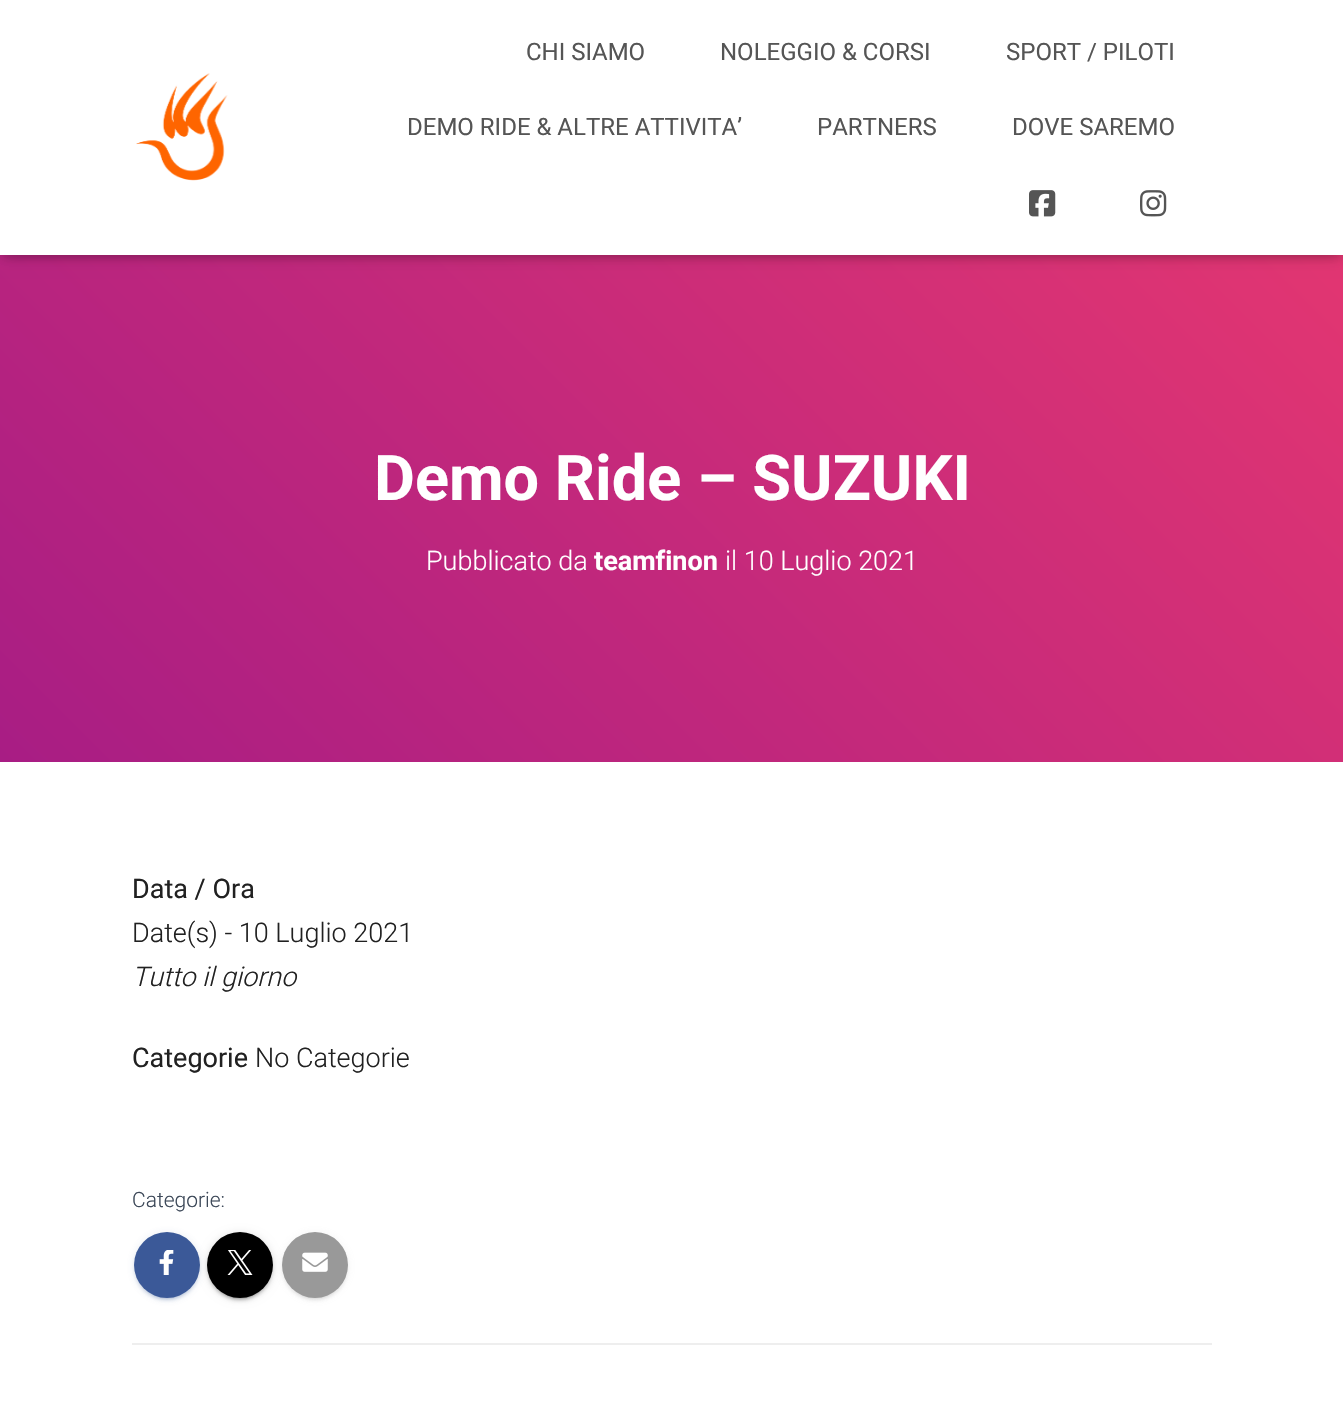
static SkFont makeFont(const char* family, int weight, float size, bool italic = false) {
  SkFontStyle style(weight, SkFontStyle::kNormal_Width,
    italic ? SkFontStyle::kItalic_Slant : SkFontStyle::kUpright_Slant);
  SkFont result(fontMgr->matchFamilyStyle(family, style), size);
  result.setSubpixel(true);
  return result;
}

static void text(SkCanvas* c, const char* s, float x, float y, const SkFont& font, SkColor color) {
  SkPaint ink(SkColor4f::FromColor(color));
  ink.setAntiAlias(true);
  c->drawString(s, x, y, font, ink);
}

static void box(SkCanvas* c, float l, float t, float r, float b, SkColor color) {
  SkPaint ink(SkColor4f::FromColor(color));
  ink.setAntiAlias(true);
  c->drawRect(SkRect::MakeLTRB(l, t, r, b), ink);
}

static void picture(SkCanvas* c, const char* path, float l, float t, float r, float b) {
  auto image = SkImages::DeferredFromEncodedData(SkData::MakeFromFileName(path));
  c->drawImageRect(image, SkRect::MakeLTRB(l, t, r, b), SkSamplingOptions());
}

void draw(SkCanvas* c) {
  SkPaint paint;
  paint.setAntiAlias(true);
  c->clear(0xffffffff);
  {
    const SkColor colors[] = {0xffa81d84, 0xffea396f};
    const float stops[] = {0, 1};
    const SkPoint ends[] = {{146, 908}, {1198, -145}};
    paint.setShader(SkGradientShader::MakeLinear(ends, colors, stops, 2, SkTileMode::kClamp));
    paint.setAlpha(255);
  }
  c->drawRect(SkRect::MakeLTRB(0, 255, 1343, 762), paint);
  paint.setShader(nullptr);
  paint.setColor(0x1a000000);
  paint.setMaskFilter(SkMaskFilter::MakeBlur(kNormal_SkBlurStyle, 4));
  c->drawRect(SkRect::MakeLTRB(3, 9, 1341, 258), paint);
  paint.setMaskFilter(nullptr);
  paint.setColor(0x1f000000);
  paint.setMaskFilter(SkMaskFilter::MakeBlur(kNormal_SkBlurStyle, 7.5f));
  c->drawRect(SkRect::MakeLTRB(0, 2, 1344, 257), paint);
  paint.setMaskFilter(nullptr);
  paint.setColor(0x6b000000);
  paint.setMaskFilter(SkMaskFilter::MakeBlur(kNormal_SkBlurStyle, 7.5f));
  c->drawRect(SkRect::MakeLTRB(9, 11, 1335, 248), paint);
  paint.setMaskFilter(nullptr);
  box(c, 0, 0, 1343, 255, 0xffffffff);
  picture(c, "img_01.png", 136, 73, 228, 181);
  SkFont face1 = makeFont("Roboto", 400, 24);
  text(c, "CHI SIAMO", 526, 60, face1, 0xff555555);
  text(c, "NOLEGGIO & CORSI", 720, 60, face1, 0xff555555);
  text(c, "SPORT / PILOTI", 1006, 60, face1, 0xff555555);
  text(c, "DEMO RIDE & ALTRE ATTIVITA’", 407, 135, face1, 0xff555555);
  text(c, "PARTNERS", 817, 135, face1, 0xff555555);
  text(c, "DOVE SAREMO", 1012, 135, face1, 0xff555555);
  picture(c, "img_02.png", 1029, 190, 1056, 217);
  picture(c, "img_03.png", 1140, 190, 1167, 217);
  SkFont face2 = makeFont("Roboto", 700, 63);
  text(c, "Demo Ride – SUZUKI", 374, 500, face2, 0xffffffff);
  SkFont face3 = makeFont("Roboto", 300, 27);
  text(c, "Pubblicato da", 426, 570, face3, 0xffffffff);
  SkFont face4 = makeFont("Roboto", 700, 27);
  text(c, "teamfinon", 594, 570, face4, 0xffffffff);
  text(c, "il 10 Luglio 2021", 725, 570, face3, 0xffffffff);
  SkFont face5 = makeFont("Roboto", 400, 27);
  text(c, "Data / Ora", 132, 898, face5, 0xff212121);
  text(c, "Date(s) - 10 Luglio 2021", 132, 942, face3, 0xff212121);
  SkFont face6 = makeFont("Roboto", 300, 27, true);
  text(c, "Tutto il giorno", 132, 986, face6, 0xff212121);
  text(c, "Categorie", 132, 1067, face5, 0xff212121);
  text(c, "No Categorie", 255, 1067, face3, 0xff212121);
  SkFont face7 = makeFont("Roboto", 300, 21);
  text(c, "Categorie:", 132, 1207, face7, 0xff3c4858);
  paint.setColor(0x1f3b5998);
  paint.setMaskFilter(SkMaskFilter::MakeBlur(kNormal_SkBlurStyle, 4));
  c->drawRoundRect(SkRect::MakeLTRB(134, 1233, 200, 1299), 33, 33, paint);
  paint.setMaskFilter(nullptr);
  paint.setColor(0x333b5998);
  paint.setMaskFilter(SkMaskFilter::MakeBlur(kNormal_SkBlurStyle, 1));
  c->drawRoundRect(SkRect::MakeLTRB(137, 1239, 197, 1299), 30, 30, paint);
  paint.setMaskFilter(nullptr);
  paint.setColor(0x243b5998);
  paint.setMaskFilter(SkMaskFilter::MakeBlur(kNormal_SkBlurStyle, 1.5f));
  c->drawRoundRect(SkRect::MakeLTRB(134, 1235, 200, 1301), 33, 33, paint);
  paint.setMaskFilter(nullptr);
  paint.setColor(0xff3b5998);
  c->drawCircle(167, 1265, 33, paint);
  picture(c, "img_04.png", 159, 1250, 174, 1275);
  paint.setColor(0x1f000000);
  paint.setMaskFilter(SkMaskFilter::MakeBlur(kNormal_SkBlurStyle, 4));
  c->drawRoundRect(SkRect::MakeLTRB(207, 1233, 273, 1299), 33, 33, paint);
  paint.setMaskFilter(nullptr);
  paint.setColor(0x33000000);
  paint.setMaskFilter(SkMaskFilter::MakeBlur(kNormal_SkBlurStyle, 1));
  c->drawRoundRect(SkRect::MakeLTRB(210, 1239, 270, 1299), 30, 30, paint);
  paint.setMaskFilter(nullptr);
  paint.setColor(0x24000000);
  paint.setMaskFilter(SkMaskFilter::MakeBlur(kNormal_SkBlurStyle, 1.5f));
  c->drawRoundRect(SkRect::MakeLTRB(207, 1235, 273, 1301), 33, 33, paint);
  paint.setMaskFilter(nullptr);
  paint.setColor(0xff000000);
  c->drawCircle(240, 1265, 33, paint);
  picture(c, "img_05.png", 227, 1250, 253, 1275);
  paint.setColor(0x1f999999);
  paint.setMaskFilter(SkMaskFilter::MakeBlur(kNormal_SkBlurStyle, 4));
  c->drawRoundRect(SkRect::MakeLTRB(282, 1233, 348, 1299), 33, 33, paint);
  paint.setMaskFilter(nullptr);
  paint.setColor(0x33999999);
  paint.setMaskFilter(SkMaskFilter::MakeBlur(kNormal_SkBlurStyle, 1));
  c->drawRoundRect(SkRect::MakeLTRB(285, 1239, 345, 1299), 30, 30, paint);
  paint.setMaskFilter(nullptr);
  paint.setColor(0x24999999);
  paint.setMaskFilter(SkMaskFilter::MakeBlur(kNormal_SkBlurStyle, 1.5f));
  c->drawRoundRect(SkRect::MakeLTRB(282, 1235, 348, 1301), 33, 33, paint);
  paint.setMaskFilter(nullptr);
  paint.setColor(0xff999999);
  c->drawCircle(315, 1265, 33, paint);
  picture(c, "img_06.png", 302, 1252, 328, 1272);
  box(c, 132, 1343, 1212, 1345, 0xffeeeeee);
}
